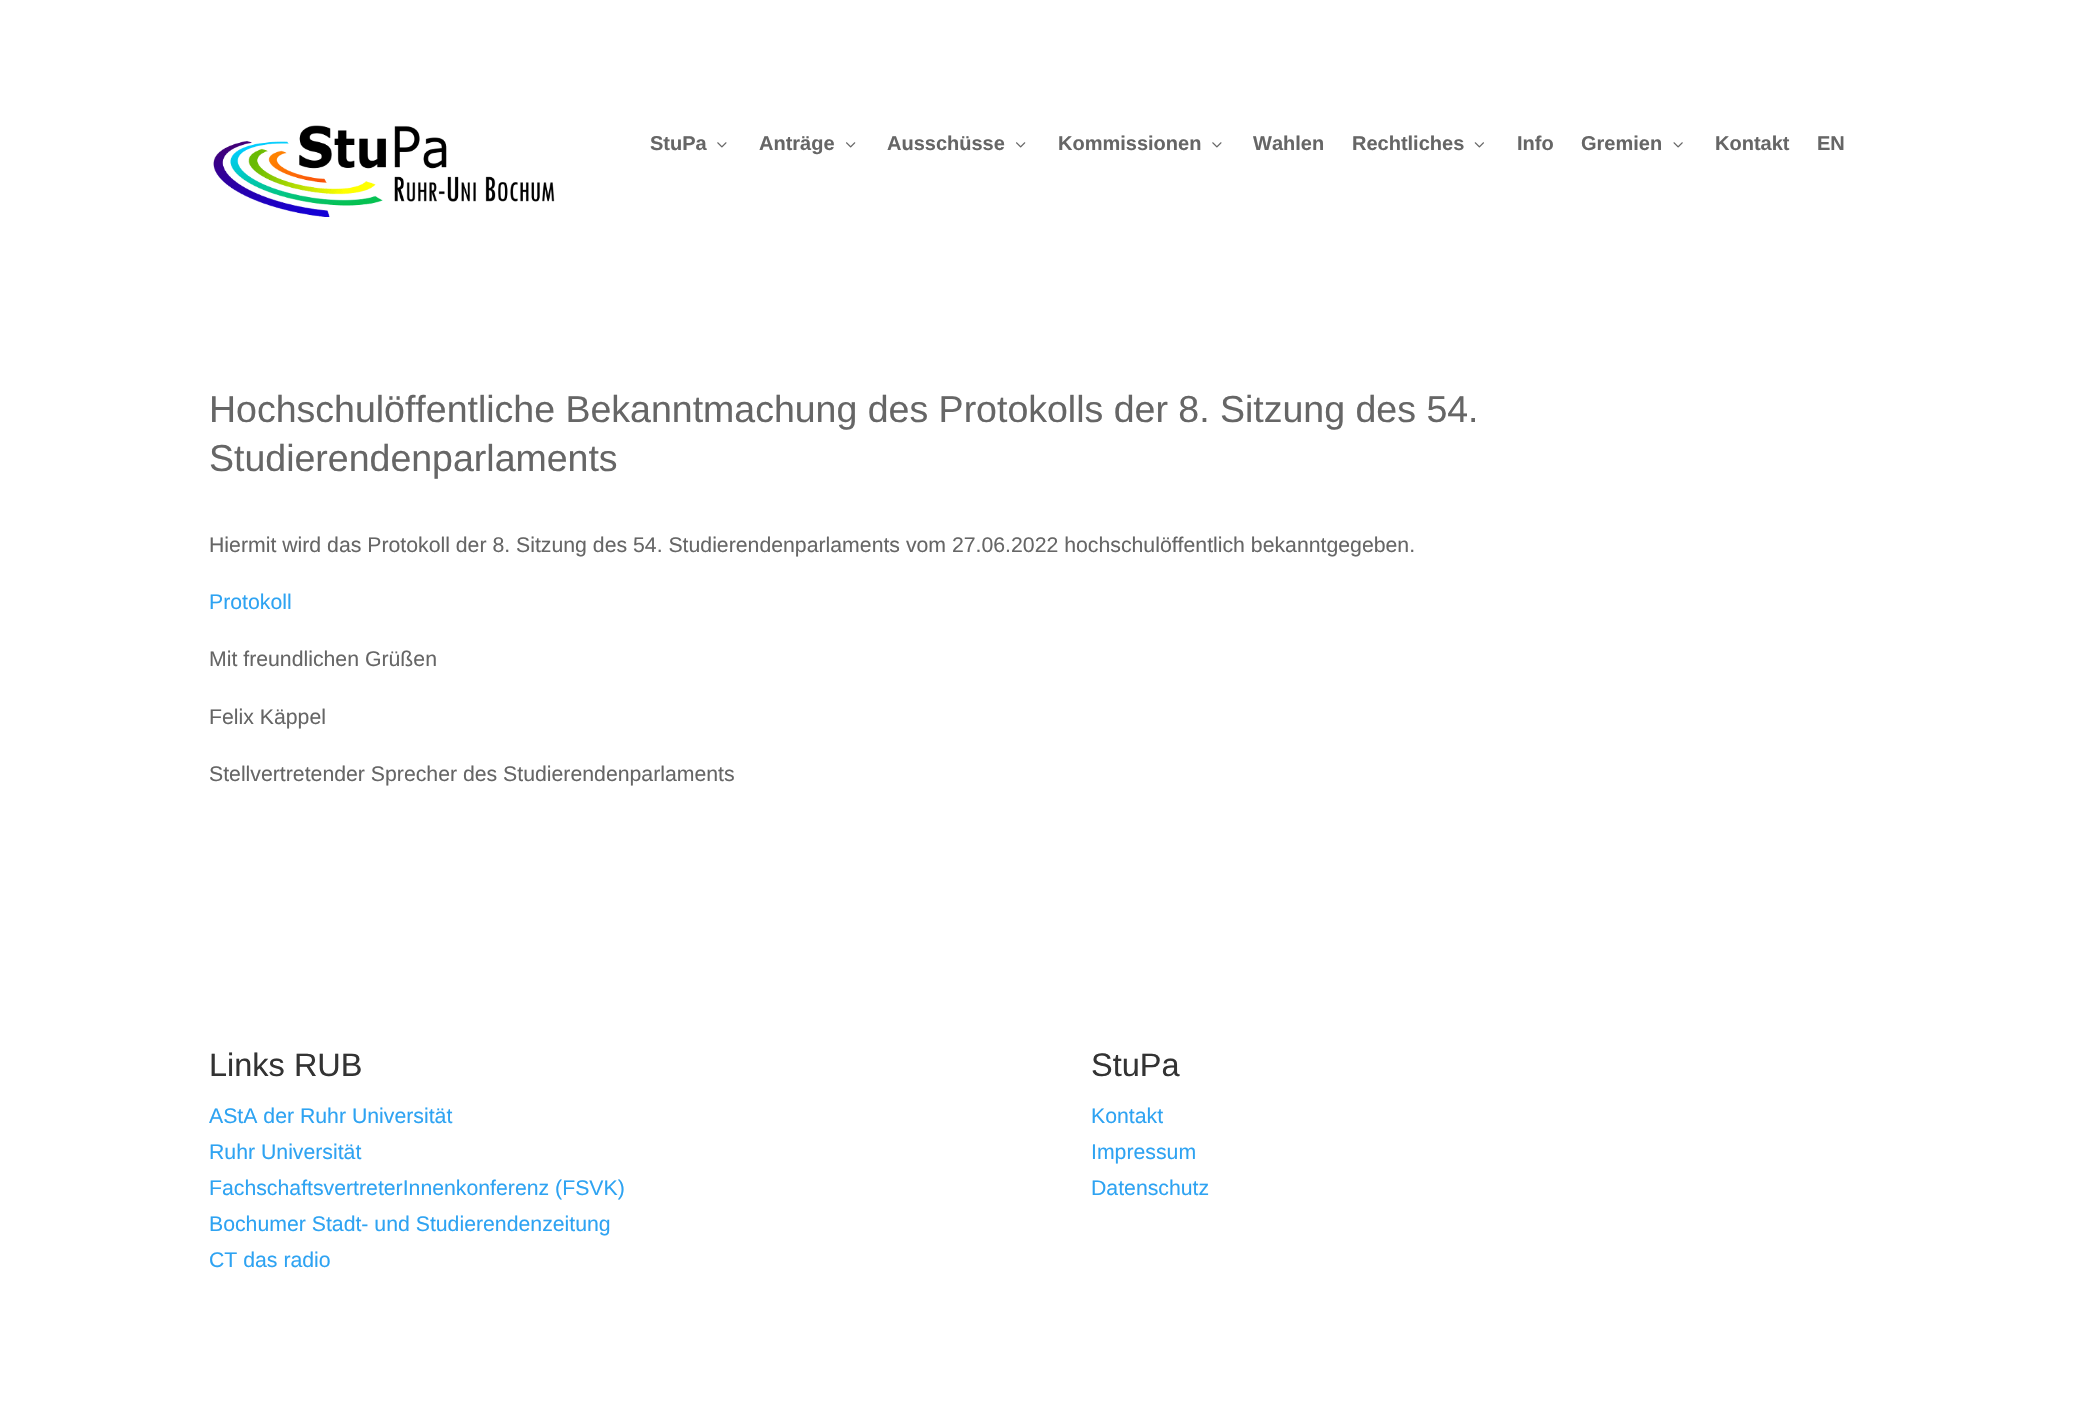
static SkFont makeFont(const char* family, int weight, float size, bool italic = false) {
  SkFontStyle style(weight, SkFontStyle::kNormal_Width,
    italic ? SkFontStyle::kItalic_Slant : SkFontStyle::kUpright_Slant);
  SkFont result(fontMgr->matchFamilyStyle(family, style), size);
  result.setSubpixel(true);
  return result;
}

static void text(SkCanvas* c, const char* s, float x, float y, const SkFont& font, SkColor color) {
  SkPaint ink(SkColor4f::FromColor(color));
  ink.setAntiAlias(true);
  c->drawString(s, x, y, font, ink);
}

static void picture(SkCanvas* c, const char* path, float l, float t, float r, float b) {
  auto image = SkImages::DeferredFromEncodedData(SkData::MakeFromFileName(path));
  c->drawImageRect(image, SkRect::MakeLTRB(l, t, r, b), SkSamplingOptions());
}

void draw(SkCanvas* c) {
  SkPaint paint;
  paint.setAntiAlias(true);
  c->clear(0xffffffff);
  picture(c, "img_01.png", 213, 125, 555, 217);
  SkFont face1 = makeFont("Liberation Sans", 700, 20);
  text(c, "StuPa", 650, 150, face1, 0xff666666);
  picture(c, "img_02.png", 717, 142, 727, 148);
  text(c, "Anträge", 759, 150, face1, 0xff666666);
  picture(c, "img_03.png", 846, 142, 856, 148);
  text(c, "Ausschüsse", 887, 150, face1, 0xff666666);
  picture(c, "img_03.png", 1016, 142, 1026, 148);
  text(c, "Kommissionen", 1058, 150, face1, 0xff666666);
  picture(c, "img_02.png", 1212, 142, 1222, 148);
  text(c, "Wahlen", 1253, 150, face1, 0xff666666);
  text(c, "Rechtliches", 1352, 150, face1, 0xff666666);
  picture(c, "img_04.png", 1474, 142, 1484, 148);
  text(c, "Info", 1517, 150, face1, 0xff666666);
  text(c, "Gremien", 1581, 150, face1, 0xff666666);
  picture(c, "img_05.png", 1673, 142, 1683, 148);
  text(c, "Kontakt", 1715, 150, face1, 0xff666666);
  text(c, "EN", 1817, 150, face1, 0xff666666);
  SkFont face2 = makeFont("Liberation Sans", 400, 37.5f);
  text(c, "Hochschulöffentliche Bekanntmachung des Protokolls der 8. Sitzung des 54.", 209, 422, face2, 0xff666666);
  text(c, "Studierendenparlaments", 209, 471, face2, 0xff666666);
  SkFont face3 = makeFont("Liberation Sans", 400, 21.25f);
  text(c, "Hiermit wird das Protokoll der 8. Sitzung des 54. Studierendenparlaments vom 27.06.2022 hochschulöffentlich bekanntgegeben.", 209, 552, face3, 0xff666666);
  text(c, "Protokoll", 209, 609, face3, 0xff2ea3f2);
  text(c, "Mit freundlichen Grüßen", 209, 666, face3, 0xff666666);
  text(c, "Felix Käppel", 209, 724, face3, 0xff666666);
  text(c, "Stellvertretender Sprecher des Studierendenparlaments", 209, 781, face3, 0xff666666);
  SkFont face4 = makeFont("Liberation Sans", 400, 32.5f);
  text(c, "Links RUB", 209, 1076, face4, 0xff333333);
  text(c, "AStA der Ruhr Universität", 209, 1123, face3, 0xff2ea3f2);
  text(c, "Ruhr Universität", 209, 1159, face3, 0xff2ea3f2);
  text(c, "FachschaftsvertreterInnenkonferenz (FSVK)", 209, 1195, face3, 0xff2ea3f2);
  text(c, "Bochumer Stadt- und Studierendenzeitung", 209, 1231, face3, 0xff2ea3f2);
  text(c, "CT das radio", 209, 1267, face3, 0xff2ea3f2);
  text(c, "StuPa", 1091, 1076, face4, 0xff333333);
  text(c, "Kontakt", 1091, 1123, face3, 0xff2ea3f2);
  text(c, "Impressum", 1091, 1159, face3, 0xff2ea3f2);
  text(c, "Datenschutz", 1091, 1195, face3, 0xff2ea3f2);
}
